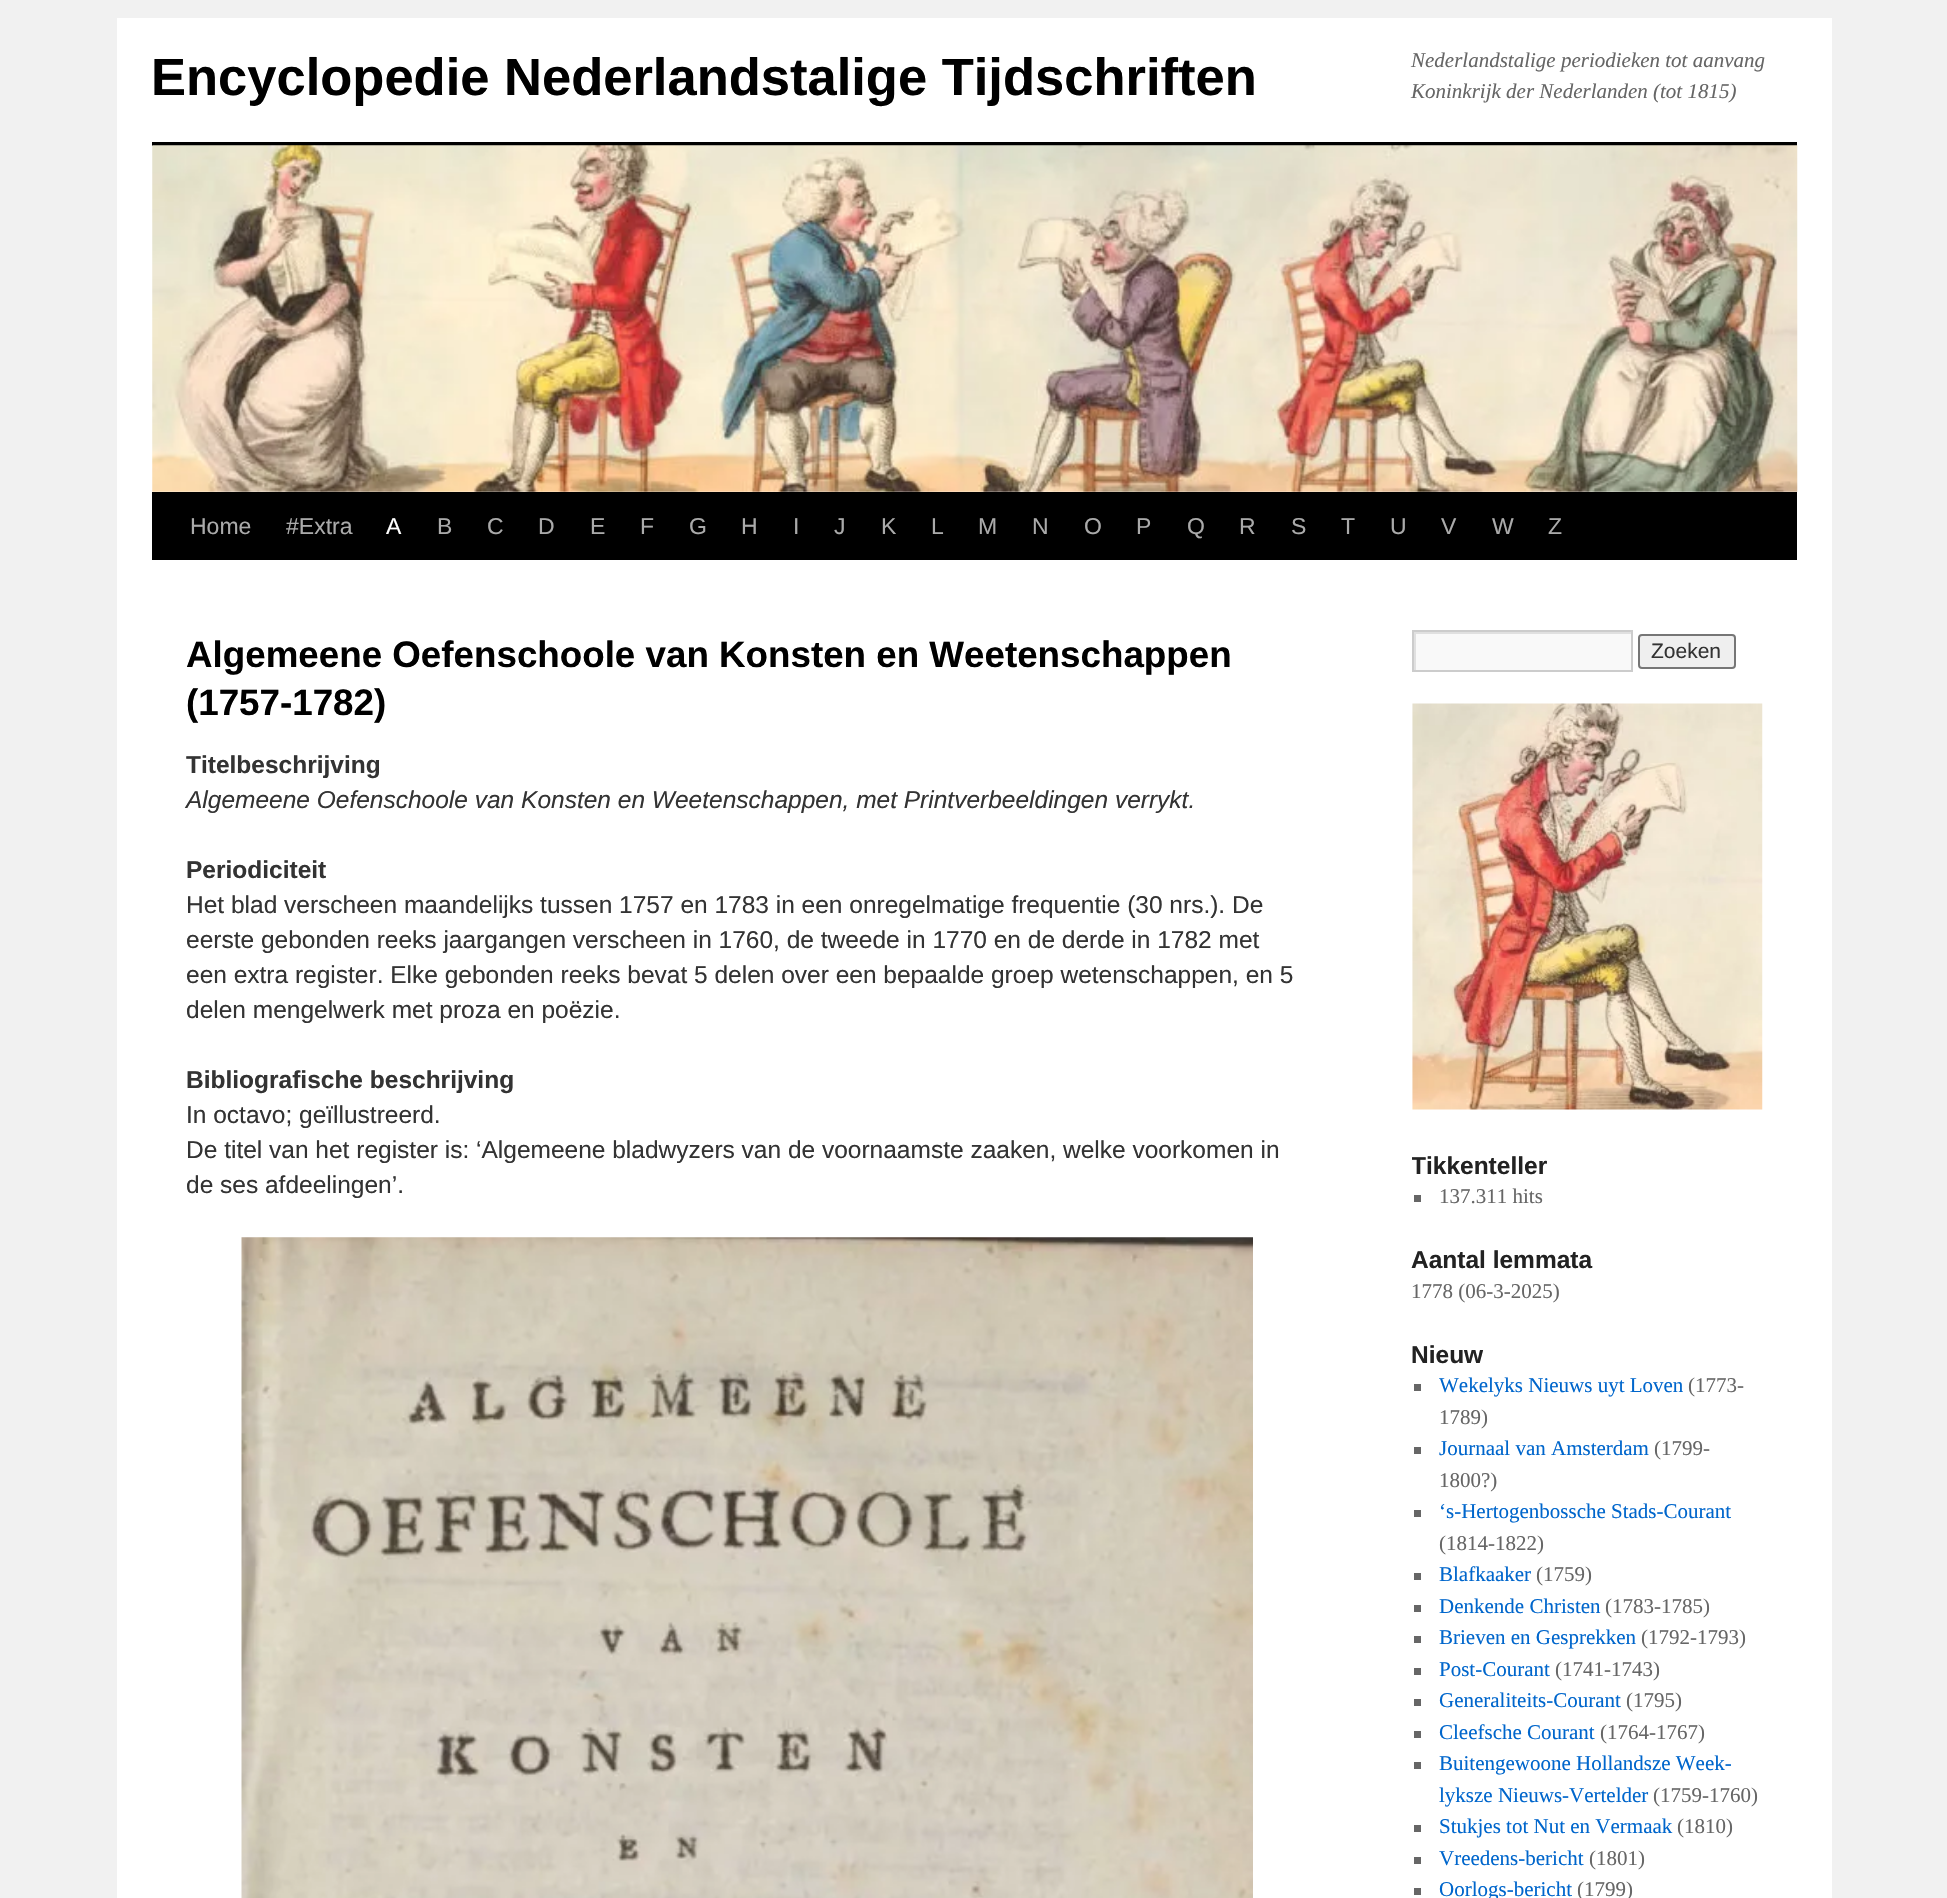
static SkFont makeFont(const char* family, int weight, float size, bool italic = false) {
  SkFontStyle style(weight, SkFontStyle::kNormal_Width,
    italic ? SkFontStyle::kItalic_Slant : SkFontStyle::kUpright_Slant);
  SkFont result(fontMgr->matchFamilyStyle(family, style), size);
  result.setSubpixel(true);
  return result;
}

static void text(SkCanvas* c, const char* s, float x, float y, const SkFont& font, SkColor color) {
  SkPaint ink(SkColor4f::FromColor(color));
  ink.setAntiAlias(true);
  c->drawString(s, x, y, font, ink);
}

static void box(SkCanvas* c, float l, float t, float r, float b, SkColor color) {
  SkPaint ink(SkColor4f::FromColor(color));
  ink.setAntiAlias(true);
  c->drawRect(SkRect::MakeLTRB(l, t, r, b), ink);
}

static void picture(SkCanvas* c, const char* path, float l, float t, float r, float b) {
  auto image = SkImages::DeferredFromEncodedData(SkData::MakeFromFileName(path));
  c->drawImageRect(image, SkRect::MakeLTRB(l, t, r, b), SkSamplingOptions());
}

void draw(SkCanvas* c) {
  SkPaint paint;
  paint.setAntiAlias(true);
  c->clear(0xfff1f1f1);
  box(c, 117, 18, 1832, 1898, 0xffffffff);
  SkFont face1 = makeFont("Liberation Sans", 700, 52.5f);
  text(c, "Encyclopedie Nederlandstalige Tijdschriften", 151, 95, face1, 0xff000000);
  SkFont face2 = makeFont("Liberation Serif", 400, 21, true);
  text(c, "Nederlandstalige periodieken tot aanvang", 1411, 67, face2, 0xff666666);
  text(c, "Koninkrijk der Nederlanden (tot 1815)", 1411, 98, face2, 0xff666666);
  box(c, 152, 142, 1797, 146, 0xff000000);
  box(c, 152, 492, 1797, 560, 0xff000000);
  picture(c, "img_01.png", 152, 145, 1798, 492);
  SkFont face3 = makeFont("Liberation Sans", 400, 23);
  text(c, "Home", 190, 534, face3, 0xffaaaaaa);
  text(c, "#Extra", 286, 534, face3, 0xffaaaaaa);
  text(c, "A", 386, 534, face3, 0xffffffff);
  text(c, "B", 437, 534, face3, 0xffaaaaaa);
  text(c, "C", 487, 534, face3, 0xffaaaaaa);
  text(c, "D", 538, 534, face3, 0xffaaaaaa);
  text(c, "E", 590, 534, face3, 0xffaaaaaa);
  text(c, "F", 640, 534, face3, 0xffaaaaaa);
  text(c, "G", 689, 534, face3, 0xffaaaaaa);
  text(c, "H", 741, 534, face3, 0xffaaaaaa);
  text(c, "I", 793, 534, face3, 0xffaaaaaa);
  text(c, "J", 834, 534, face3, 0xffaaaaaa);
  text(c, "K", 881, 534, face3, 0xffaaaaaa);
  text(c, "L", 931, 534, face3, 0xffaaaaaa);
  text(c, "M", 978, 534, face3, 0xffaaaaaa);
  text(c, "N", 1032, 534, face3, 0xffaaaaaa);
  text(c, "O", 1084, 534, face3, 0xffaaaaaa);
  text(c, "P", 1136, 534, face3, 0xffaaaaaa);
  text(c, "Q", 1187, 534, face3, 0xffaaaaaa);
  text(c, "R", 1239, 534, face3, 0xffaaaaaa);
  text(c, "S", 1291, 534, face3, 0xffaaaaaa);
  text(c, "T", 1341, 534, face3, 0xffaaaaaa);
  text(c, "U", 1390, 534, face3, 0xffaaaaaa);
  text(c, "V", 1441, 534, face3, 0xffaaaaaa);
  text(c, "W", 1492, 534, face3, 0xffaaaaaa);
  text(c, "Z", 1548, 534, face3, 0xffaaaaaa);
  SkFont face4 = makeFont("Liberation Sans", 700, 36.75f);
  text(c, "Algemeene Oefenschoole van Konsten en Weetenschappen", 186, 667, face4, 0xff000000);
  text(c, "(1757-1782)", 186, 715, face4, 0xff000000);
  SkFont face5 = makeFont("Liberation Sans", 700, 24.5f);
  text(c, "Titelbeschrijving", 186, 773, face5, 0xff333333);
  SkFont face6 = makeFont("Liberation Sans", 400, 24.5f, true);
  text(c, "Algemeene Oefenschoole van Konsten en Weetenschappen, met Printverbeeldingen verrykt.", 186, 808, face6, 0xff333333);
  text(c, "Periodiciteit", 186, 878, face5, 0xff333333);
  SkFont face7 = makeFont("Liberation Sans", 400, 24.5f);
  text(c, "Het blad verscheen maandelijks tussen 1757 en 1783 in een onregelmatige frequentie (30 nrs.). De", 186, 913, face7, 0xff333333);
  text(c, "eerste gebonden reeks jaargangen verscheen in 1760, de tweede in 1770 en de derde in 1782 met", 186, 948, face7, 0xff333333);
  text(c, "een extra register. Elke gebonden reeks bevat 5 delen over een bepaalde groep wetenschappen, en 5", 186, 983, face7, 0xff333333);
  text(c, "delen mengelwerk met proza en poëzie.", 186, 1018, face7, 0xff333333);
  text(c, "Bibliografische beschrijving", 186, 1088, face5, 0xff333333);
  text(c, "In octavo; geïllustreerd.", 186, 1123, face7, 0xff333333);
  text(c, "De titel van het register is: ‘Algemeene bladwyzers van de voornaamste zaaken, welke voorkomen in", 186, 1158, face7, 0xff333333);
  text(c, "de ses afdeelingen’.", 186, 1193, face7, 0xff333333);
  picture(c, "img_02.png", 241, 1237, 1253, 1898);
  box(c, 1416, 634, 1631, 670, 0xfff9f9f9);
  c->save();
  c->clipRect(SkRect::MakeLTRB(1414, 632, 1631, 670));
  paint.setColor(0xffe0e0e0);
  c->drawPath(SkPathBuilder(SkPathFillType::kEvenOdd).moveTo(1241, 458).lineTo(1804, 458).lineTo(1804, 844).lineTo(1241, 844).close().moveTo(1416, 634).lineTo(1633, 634).lineTo(1633, 672).lineTo(1416, 672).close().detach(), paint);
  c->restore();
  paint.setStyle(SkPaint::kStroke_Style);
  paint.setStrokeWidth(2);
  paint.setColor(0xffcccccc);
  c->drawRect(SkRect::MakeLTRB(1413, 631, 1632, 671), paint);
  paint.setStyle(SkPaint::kFill_Style);
  paint.setColor(0xffefefef);
  c->drawRoundRect(SkRect::MakeLTRB(1639, 635, 1735, 668), 3, 3, paint);
  paint.setStyle(SkPaint::kStroke_Style);
  paint.setColor(0xff767676);
  c->drawRoundRect(SkRect::MakeLTRB(1639, 635, 1735, 668), 3, 3, paint);
  SkFont face8 = makeFont("Liberation Sans", 400, 21);
  text(c, "Zoeken", 1651, 658, face8, 0xff333333);
  picture(c, "img_03.png", 1412, 703, 1763, 1110);
  c->save();
  c->clipRect(SkRect::MakeLTRB(1412, 630, 1797, 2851));
  text(c, "Tikkenteller", 1411, 1174, face5, 0xff222222);
  c->restore();
  box(c, 1414, 1195, 1421, 1202, 0xff666666);
  SkFont face9 = makeFont("Liberation Serif", 400, 21);
  text(c, "137.311 hits", 1439, 1203, face9, 0xff666666);
  text(c, "Aantal lemmata", 1411, 1268, face5, 0xff222222);
  text(c, "1778 (06-3-2025)", 1411, 1298, face9, 0xff666666);
  text(c, "Nieuw", 1411, 1363, face5, 0xff222222);
  box(c, 1414, 1384, 1421, 1391, 0xff666666);
  text(c, "Wekelyks Nieuws uyt Loven", 1439, 1392, face9, 0xff0066cc);
  text(c, "(1773-", 1688, 1392, face9, 0xff666666);
  text(c, "1789)", 1439, 1424, face9, 0xff666666);
  box(c, 1414, 1447, 1421, 1454, 0xff666666);
  text(c, "Journaal van Amsterdam", 1439, 1455, face9, 0xff0066cc);
  text(c, "(1799-", 1654, 1455, face9, 0xff666666);
  text(c, "1800?)", 1439, 1487, face9, 0xff666666);
  box(c, 1414, 1510, 1421, 1517, 0xff666666);
  text(c, "‘s-Hertogenbossche Stads-Courant", 1439, 1518, face9, 0xff0066cc);
  text(c, "(1814-1822)", 1439, 1550, face9, 0xff666666);
  box(c, 1414, 1573, 1421, 1580, 0xff666666);
  text(c, "Blafkaaker", 1439, 1581, face9, 0xff0066cc);
  text(c, "(1759)", 1536, 1581, face9, 0xff666666);
  box(c, 1414, 1605, 1421, 1612, 0xff666666);
  text(c, "Denkende Christen", 1439, 1613, face9, 0xff0066cc);
  text(c, "(1783-1785)", 1605, 1613, face9, 0xff666666);
  box(c, 1414, 1636, 1421, 1643, 0xff666666);
  text(c, "Brieven en Gesprekken", 1439, 1644, face9, 0xff0066cc);
  text(c, "(1792-1793)", 1641, 1644, face9, 0xff666666);
  box(c, 1414, 1668, 1421, 1675, 0xff666666);
  text(c, "Post-Courant", 1439, 1676, face9, 0xff0066cc);
  text(c, "(1741-1743)", 1555, 1676, face9, 0xff666666);
  box(c, 1414, 1699, 1421, 1706, 0xff666666);
  text(c, "Generaliteits-Courant", 1439, 1707, face9, 0xff0066cc);
  text(c, "(1795)", 1626, 1707, face9, 0xff666666);
  box(c, 1414, 1731, 1421, 1738, 0xff666666);
  text(c, "Cleefsche Courant", 1439, 1739, face9, 0xff0066cc);
  text(c, "(1764-1767)", 1600, 1739, face9, 0xff666666);
  box(c, 1414, 1762, 1421, 1769, 0xff666666);
  text(c, "Buitengewoone Hollandsze Week-", 1439, 1770, face9, 0xff0066cc);
  text(c, "lyksze Nieuws-Vertelder", 1439, 1802, face9, 0xff0066cc);
  text(c, "(1759-1760)", 1653, 1802, face9, 0xff666666);
  box(c, 1414, 1825, 1421, 1832, 0xff666666);
  text(c, "Stukjes tot Nut en Vermaak", 1439, 1833, face9, 0xff0066cc);
  text(c, "(1810)", 1677, 1833, face9, 0xff666666);
  box(c, 1414, 1857, 1421, 1864, 0xff666666);
  text(c, "Vreedens-bericht", 1439, 1865, face9, 0xff0066cc);
  text(c, "(1801)", 1589, 1865, face9, 0xff666666);
  box(c, 1414, 1888, 1421, 1895, 0xff666666);
  text(c, "Oorlogs-bericht", 1439, 1896, face9, 0xff0066cc);
  text(c, "(1799)", 1577, 1896, face9, 0xff666666);
}
